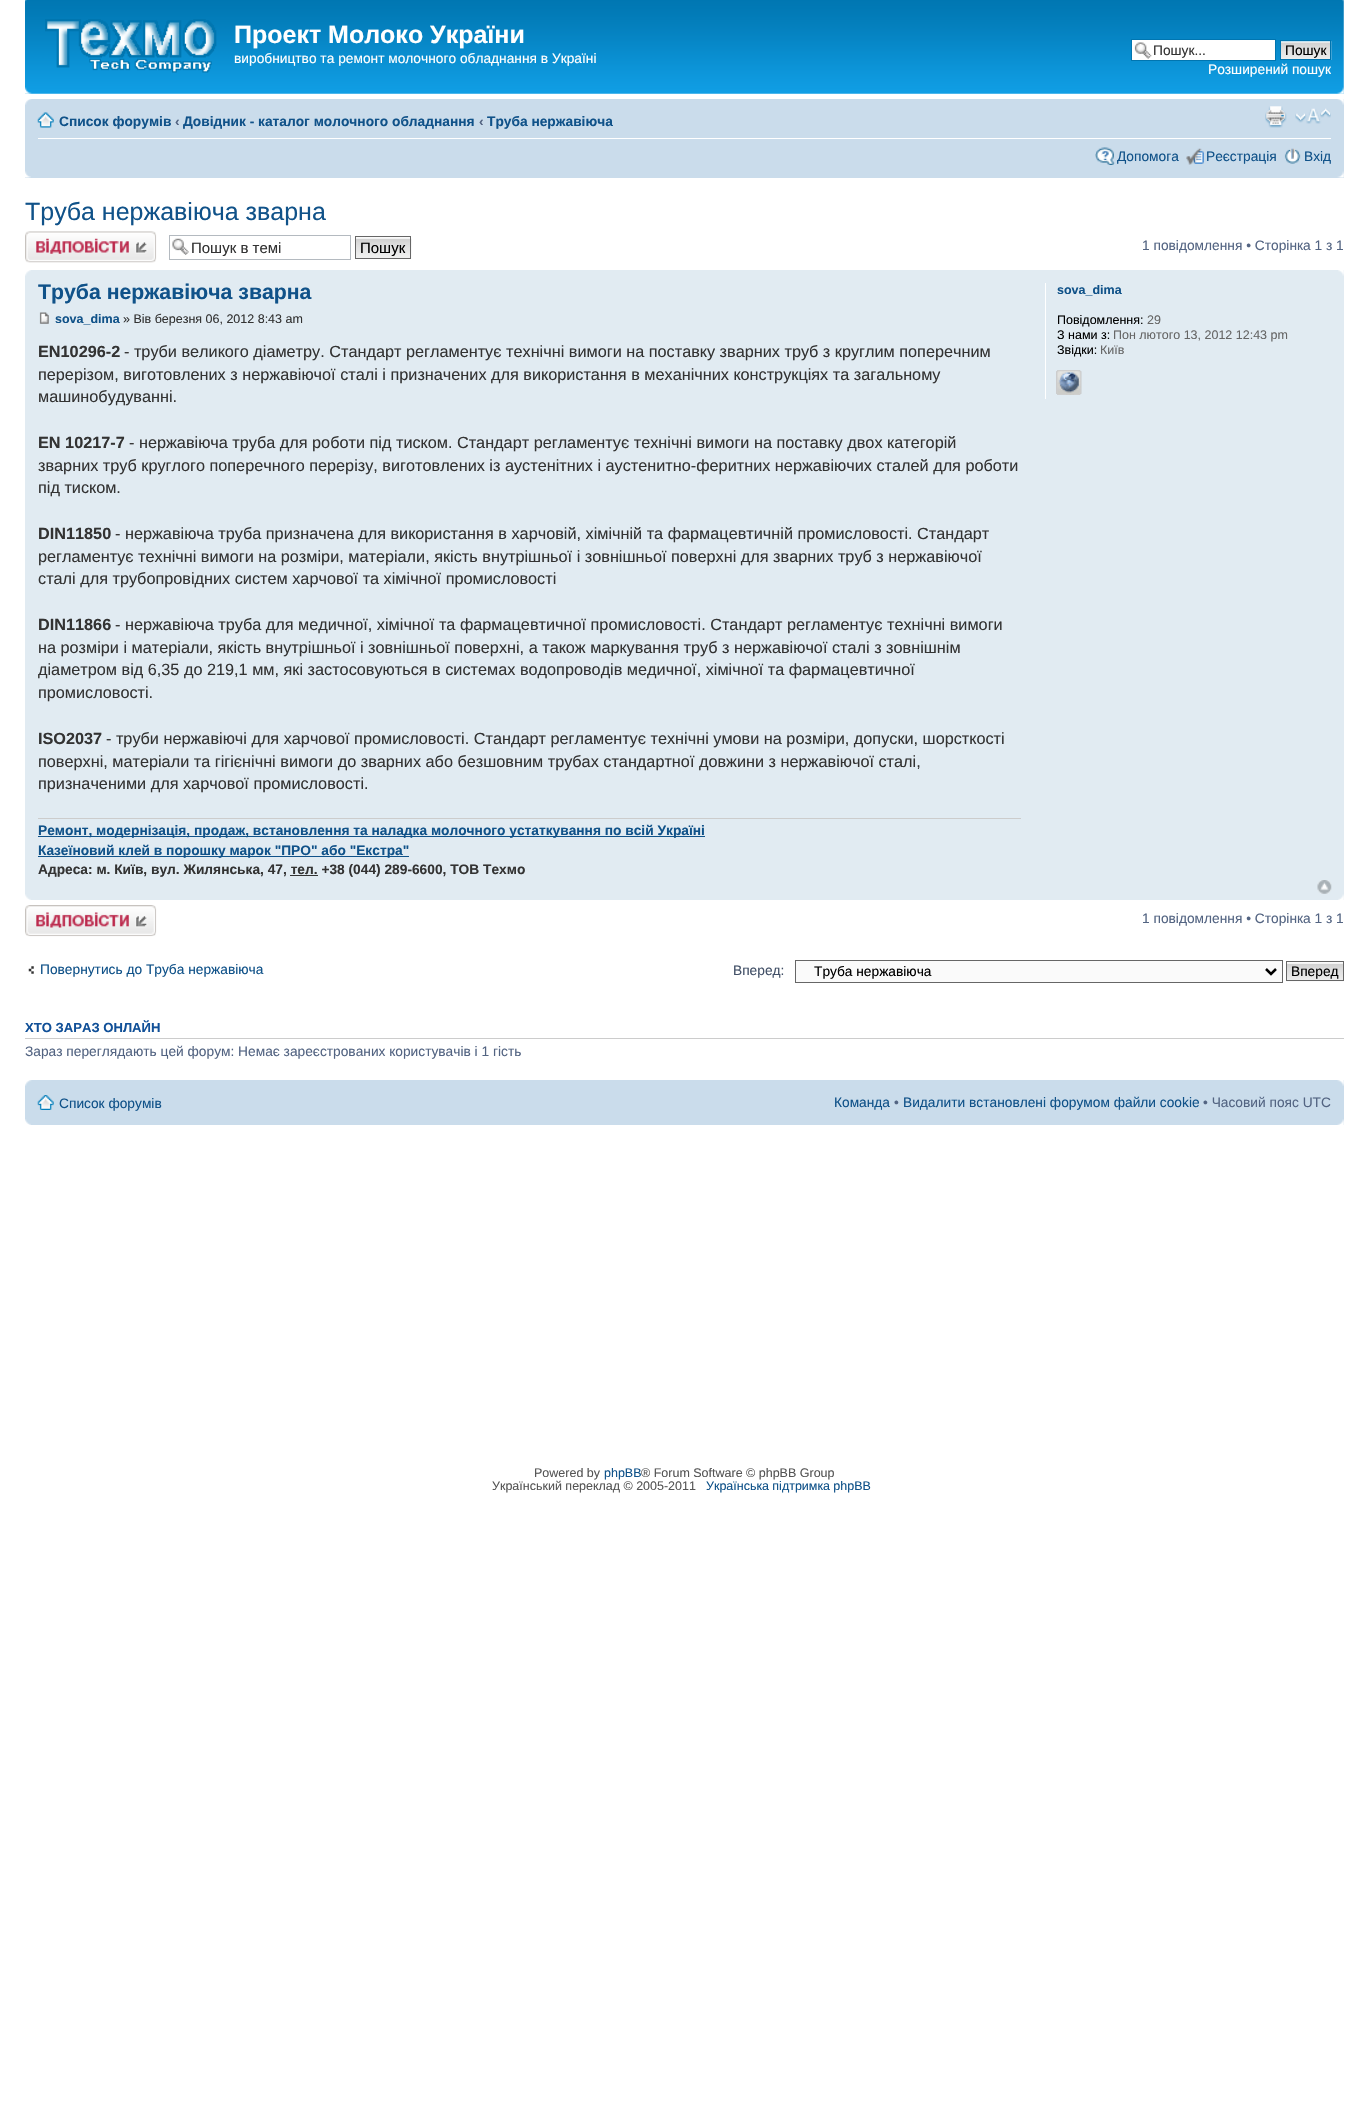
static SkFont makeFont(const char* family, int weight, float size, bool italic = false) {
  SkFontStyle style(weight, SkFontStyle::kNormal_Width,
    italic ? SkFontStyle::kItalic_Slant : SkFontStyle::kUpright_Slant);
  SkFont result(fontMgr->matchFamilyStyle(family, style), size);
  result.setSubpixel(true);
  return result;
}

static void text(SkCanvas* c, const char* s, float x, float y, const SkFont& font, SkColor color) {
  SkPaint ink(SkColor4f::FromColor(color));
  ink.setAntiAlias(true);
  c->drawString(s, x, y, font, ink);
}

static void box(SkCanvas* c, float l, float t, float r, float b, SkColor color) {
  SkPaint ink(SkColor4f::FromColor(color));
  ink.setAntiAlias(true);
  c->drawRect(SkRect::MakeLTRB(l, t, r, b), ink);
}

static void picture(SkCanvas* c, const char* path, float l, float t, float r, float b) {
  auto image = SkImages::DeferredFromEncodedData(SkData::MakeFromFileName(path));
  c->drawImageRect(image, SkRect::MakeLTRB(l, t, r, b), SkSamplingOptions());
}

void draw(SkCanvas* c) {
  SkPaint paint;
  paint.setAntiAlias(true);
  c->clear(0xffffffff);
  picture(c, "img_01.png", 25, 0, 1344, 94);
  picture(c, "img_02.png", 25, 0, 27, 2);
  picture(c, "img_03.png", 1342, 0, 1344, 2);
  picture(c, "img_04.png", 45, 19, 217, 73);
  SkFont face1 = makeFont("Liberation Sans", 700, 25);
  text(c, "Проект Молоко України", 234, 43, face1, 0xffffffff);
  SkFont face2 = makeFont("Liberation Sans", 400, 13.75f);
  text(c, "виробництво та ремонт молочного обладнання в Україні", 234, 63, face2, 0xffffffff);
  box(c, 1132, 40, 1275, 60, 0xffffffff);
  picture(c, "img_05.png", 1134, 42, 1152, 59);
  paint.setStyle(SkPaint::kStroke_Style);
  paint.setStrokeWidth(1);
  paint.setColor(0xff0075b0);
  c->drawRect(SkRect::MakeLTRB(1131.5f, 39.5f, 1275.5f, 60.5f), paint);
  text(c, "Пошук...", 1153, 55, face2, 0xff333333);
  picture(c, "img_06.png", 1281, 41, 1332, 60);
  c->drawRect(SkRect::MakeLTRB(1280.5f, 40.5f, 1330.5f, 59.5f), paint);
  text(c, "Пошук", 1285, 55, face2, 0xff000000);
  text(c, "Розширений пошук", 1208, 74, face2, 0xffffffff);
  picture(c, "img_07.png", 25, 87, 32, 94);
  picture(c, "img_08.png", 1337, 87, 1344, 94);
  box(c, 25, 99, 1344, 178, 0xffcadceb);
  picture(c, "img_09.png", 25, 99, 32, 105);
  picture(c, "img_10.png", 1337, 99, 1344, 105);
  box(c, 38, 138, 1331, 139, 0xffffffff);
  picture(c, "img_11.png", 37, 112, 54, 128);
  SkFont face3 = makeFont("Liberation Sans", 700, 13.75f);
  text(c, "Список форумів", 59, 126, face3, 0xff105289);
  text(c, "‹", 175, 126, face3, 0xff536482);
  text(c, "Довідник - каталог молочного обладнання", 183, 126, face3, 0xff105289);
  text(c, "‹", 479, 126, face3, 0xff536482);
  text(c, "Труба нержавіюча", 487, 126, face3, 0xff105289);
  picture(c, "img_12.png", 1265, 106, 1287, 128);
  picture(c, "img_13.png", 1295, 108, 1331, 124);
  picture(c, "img_14.png", 1095, 147, 1115, 165);
  text(c, "Допомога", 1117, 161, face2, 0xff105289);
  picture(c, "img_15.png", 1186, 148, 1204, 165);
  text(c, "Реєстрація", 1206, 161, face2, 0xff105289);
  picture(c, "img_16.png", 1284, 148, 1301, 164);
  text(c, "Вхід", 1304, 161, face2, 0xff105289);
  picture(c, "img_17.png", 25, 171, 31, 178);
  picture(c, "img_18.png", 1337, 171, 1344, 178);
  SkFont face4 = makeFont("Liberation Sans", 400, 25);
  text(c, "Труба нержавіюча зварна", 25, 220, face4, 0xff105289);
  picture(c, "img_19.png", 25, 231, 157, 263);
  picture(c, "img_20.png", 172, 238, 189, 255);
  paint.setColor(0xffb4bac0);
  c->drawRect(SkRect::MakeLTRB(169.5f, 235.5f, 350.5f, 259.5f), paint);
  SkFont face5 = makeFont("Liberation Sans", 400, 15);
  text(c, "Пошук в темі", 191, 253, face5, 0xff333333);
  box(c, 356, 237, 410, 238, 0xfffafafa);
  picture(c, "img_21.png", 356, 238, 412, 259);
  paint.setColor(0xff666666);
  c->drawRect(SkRect::MakeLTRB(355.5f, 236.5f, 410.5f, 258.5f), paint);
  text(c, "Пошук", 360, 253, face5, 0xff000000);
  text(c, "1 повідомлення • Сторінка 1 з 1", 1142, 250, face2, 0xff536482);
  box(c, 25, 270, 1344, 900, 0xffe1ebf2);
  picture(c, "img_22.png", 25, 270, 31, 276);
  picture(c, "img_23.png", 1338, 270, 1344, 276);
  SkFont face6 = makeFont("Liberation Sans", 700, 21.25f);
  text(c, "Труба нержавіюча зварна", 38, 299, face6, 0xff105289);
  picture(c, "img_24.png", 39, 312, 49, 324);
  SkFont face7 = makeFont("Liberation Sans", 700, 12.5f);
  text(c, "sova_dima", 55, 323, face7, 0xff105289);
  SkFont face8 = makeFont("Liberation Sans", 400, 12.5f);
  text(c, "» Вів березня 06, 2012 8:43 am", 123, 323, face8, 0xff333333);
  SkFont face9 = makeFont("Liberation Sans", 700, 16.25f);
  text(c, "EN10296-2", 38, 357, face9, 0xff333333);
  SkFont face10 = makeFont("Liberation Sans", 400, 16.25f);
  text(c, "- труби великого діаметру. Стандарт регламентує технічні вимоги на поставку зварних труб з круглим поперечним", 124, 357, face10, 0xff333333);
  text(c, "перерізом, виготовлених з нержавіючої сталі і призначених для використання в механічних конструкціях та загальному", 38, 380, face10, 0xff333333);
  text(c, "машинобудуванні.", 38, 402, face10, 0xff333333);
  text(c, "EN 10217-7", 38, 448, face9, 0xff333333);
  text(c, "- нержавіюча труба для роботи під тиском. Стандарт регламентує технічні вимоги на поставку двох категорій", 129, 448, face10, 0xff333333);
  text(c, "зварних труб круглого поперечного перерізу, виготовлених із аустенітних і аустенитно-феритних нержавіючих сталей для роботи", 38, 471, face10, 0xff333333);
  text(c, "під тиском.", 38, 493, face10, 0xff333333);
  text(c, "DIN11850", 38, 539, face9, 0xff333333);
  text(c, "- нержавіюча труба призначена для використання в харчовій, хімічній та фармацевтичній промисловості. Стандарт", 115, 539, face10, 0xff333333);
  text(c, "регламентує технічні вимоги на розміри, матеріали, якість внутрішньої і зовнішньої поверхні для зварних труб з нержавіючої", 38, 562, face10, 0xff333333);
  text(c, "сталі для трубопровідних систем харчової та хімічної промисловості", 38, 584, face10, 0xff333333);
  text(c, "DIN11866", 38, 630, face9, 0xff333333);
  text(c, "- нержавіюча труба для медичної, хімічної та фармацевтичної промисловості. Стандарт регламентує технічні вимоги", 115, 630, face10, 0xff333333);
  text(c, "на розміри і матеріали, якість внутрішньої і зовнішньої поверхні, а також маркування труб з нержавіючої сталі з зовнішнім", 38, 653, face10, 0xff333333);
  c->save();
  c->clipRect(SkRect::MakeLTRB(38, 341, 1021, 798));
  text(c, "діаметром від 6,35 до 219,1 мм, які застосовуються в системах водопроводів медичної, хімічної та фармацевтичної", 38, 675, face10, 0xff333333);
  c->restore();
  text(c, "промисловості.", 38, 698, face10, 0xff333333);
  text(c, "ISO2037", 38, 744, face9, 0xff333333);
  text(c, "- труби нержавіючі для харчової промисловості. Стандарт регламентує технічні умови на розміри, допуски, шорсткості", 106, 744, face10, 0xff333333);
  text(c, "поверхні, матеріали та гігієнічні вимоги до зварних або безшовним трубах стандартної довжини з нержавіючої сталі,", 38, 767, face10, 0xff333333);
  text(c, "призначеними для харчової промисловості.", 38, 789, face10, 0xff333333);
  box(c, 38, 818, 1021, 819, 0xffcccccc);
  box(c, 38, 836, 705, 837, 0xff105289);
  text(c, "Ремонт, модернізація, продаж, встановлення та наладка молочного устаткування по всій Україні", 38, 835, face3, 0xff105289);
  box(c, 38, 856, 409, 857, 0xff105289);
  text(c, "Казеїновий клей в порошку марок \"ПРО\" або \"Екстра\"", 38, 855, face3, 0xff105289);
  text(c, "Адреса: м. Київ, вул. Жилянська, 47, тел. +38 (044) 289-6600, ТОВ Техмо", 38, 874, face3, 0xff333333);
  box(c, 290, 875, 318, 876, 0xff333333);
  box(c, 1045, 283, 1046, 399, 0xffffffff);
  text(c, "sova_dima", 1057, 294, face7, 0xff105289);
  text(c, "Повідомлення:", 1057, 324, face8, 0xff000000);
  text(c, "29", 1147, 324, face8, 0xff666666);
  text(c, "З нами з:", 1057, 339, face8, 0xff000000);
  text(c, "Пон лютого 13, 2012 12:43 pm", 1113, 339, face8, 0xff666666);
  text(c, "Звідки:", 1057, 354, face8, 0xff000000);
  text(c, "Київ", 1100, 354, face8, 0xff666666);
  picture(c, "img_25.png", 1056, 370, 1082, 395);
  picture(c, "img_26.png", 1056, 370, 1082, 395);
  picture(c, "img_27.png", 1317, 880, 1332, 894);
  picture(c, "img_28.png", 25, 894, 31, 900);
  picture(c, "img_29.png", 1338, 894, 1344, 900);
  picture(c, "img_30.png", 25, 905, 157, 937);
  text(c, "1 повідомлення • Сторінка 1 з 1", 1142, 923, face2, 0xff536482);
  picture(c, "img_31.png", 28, 966, 34, 974);
  text(c, "Повернутись до Труба нержавіюча", 40, 974, face2, 0xff105289);
  text(c, "Вперед:", 733, 975, face2, 0xff425067);
  paint.setStyle(SkPaint::kFill_Style);
  paint.setColor(0xfffafafa);
  c->drawRect(SkRect::MakeLTRB(795.5f, 960.5f, 1282.5f, 982.5f), paint);
  paint.setStyle(SkPaint::kStroke_Style);
  paint.setColor(0xff666666);
  c->drawRect(SkRect::MakeLTRB(795.5f, 960.5f, 1282.5f, 982.5f), paint);
  paint.setStrokeWidth(2.5f);
  paint.setColor(0xff000000);
  c->drawPath(SkPathBuilder().moveTo(1266, 969).lineTo(1271, 974).lineTo(1276, 969).detach(), paint);
  text(c, "Труба нержавіюча", 814, 976, face2, 0xff000000);
  box(c, 1287, 962, 1343, 963, 0xfffafafa);
  picture(c, "img_32.png", 1286, 963, 1344, 982);
  paint.setStrokeWidth(1);
  paint.setColor(0xff666666);
  c->drawRect(SkRect::MakeLTRB(1286.5f, 961.5f, 1343.5f, 980.5f), paint);
  text(c, "Вперед", 1291, 976, face2, 0xff000000);
  box(c, 25, 1038, 1344, 1039, 0xffcccccc);
  SkFont face11 = makeFont("Liberation Sans", 700, 13.1f);
  text(c, "ХТО ЗАРАЗ ОНЛАЙН", 25, 1032, face11, 0xff115098);
  text(c, "Зараз переглядають цей форум: Немає зареєстрованих користувачів і 1 гість", 25, 1056, face2, 0xff536482);
  box(c, 25, 1080, 1344, 1125, 0xffcadceb);
  picture(c, "img_33.png", 25, 1080, 32, 1086);
  picture(c, "img_34.png", 1337, 1080, 1344, 1086);
  picture(c, "img_35.png", 37, 1095, 54, 1110);
  text(c, "Список форумів", 59, 1108, face2, 0xff105289);
  text(c, "Команда", 834, 1107, face2, 0xff105289);
  text(c, "•", 894, 1107, face2, 0xff536482);
  text(c, "Видалити встановлені форумом файли cookie", 903, 1107, face2, 0xff105289);
  text(c, "• Часовий пояс UTC", 1203, 1107, face2, 0xff536482);
  picture(c, "img_36.png", 25, 1119, 31, 1125);
  picture(c, "img_37.png", 1337, 1119, 1344, 1125);
  text(c, "Powered by", 534, 1477, face8, 0xff555555);
  text(c, "phpBB", 604, 1477, face8, 0xff105289);
  text(c, "® Forum Software © phpBB Group", 641, 1477, face8, 0xff555555);
  text(c, "Український переклад © 2005-2011", 492, 1490, face8, 0xff555555);
  text(c, "Українська підтримка phpBB", 706, 1490, face8, 0xff105289);
}
